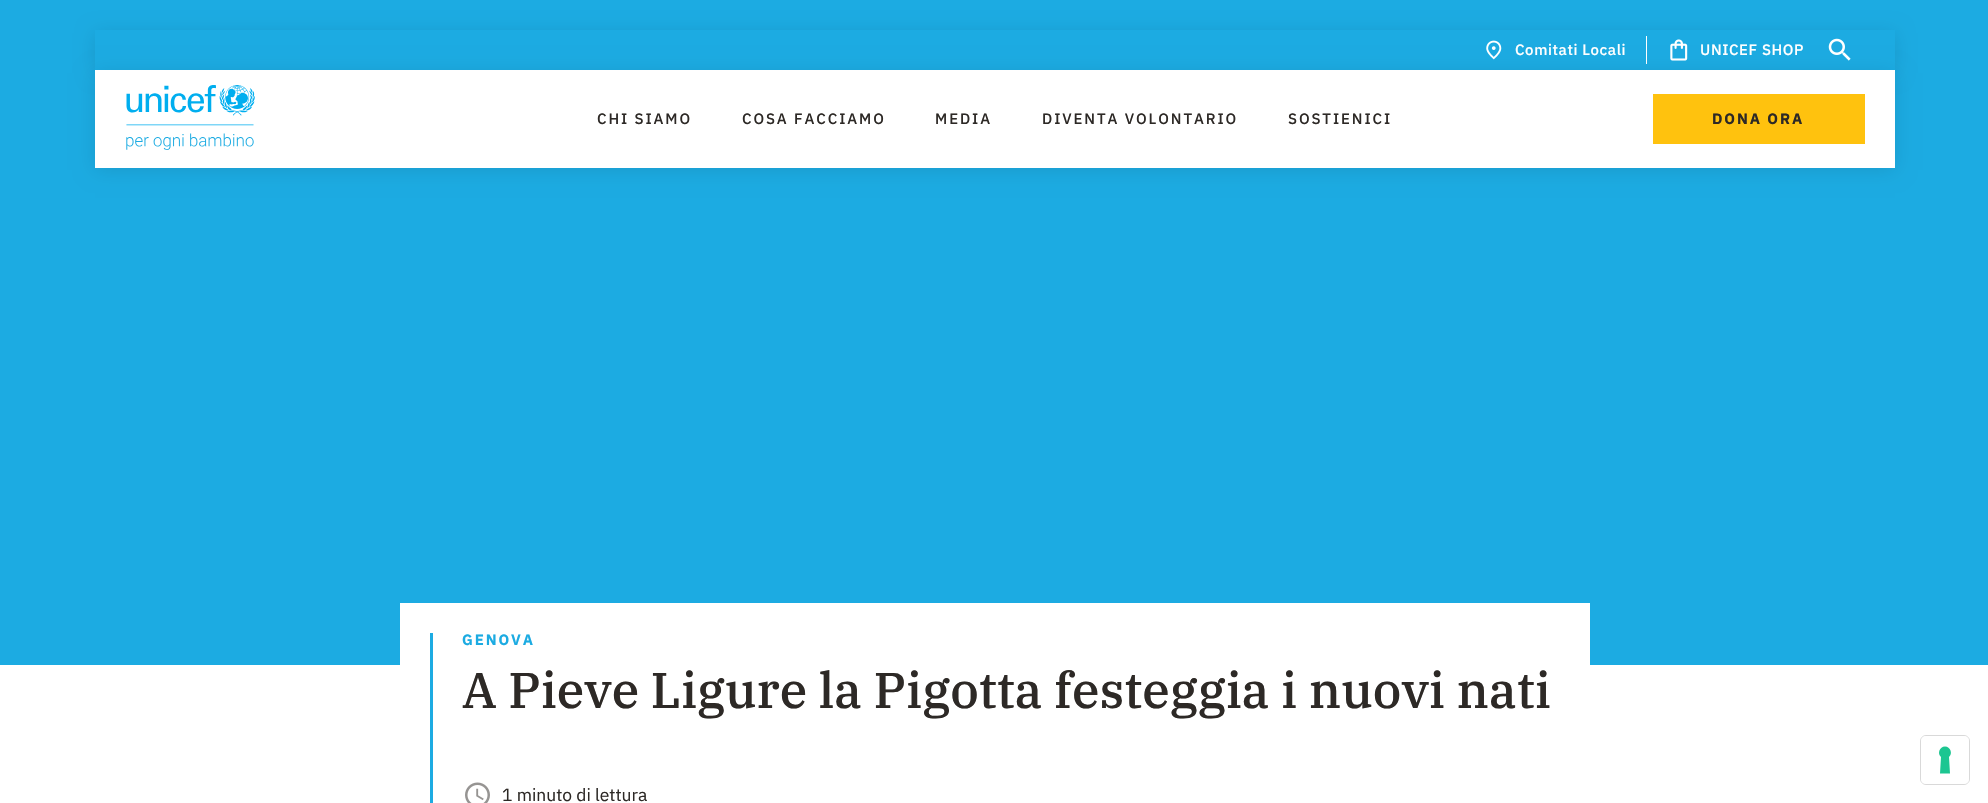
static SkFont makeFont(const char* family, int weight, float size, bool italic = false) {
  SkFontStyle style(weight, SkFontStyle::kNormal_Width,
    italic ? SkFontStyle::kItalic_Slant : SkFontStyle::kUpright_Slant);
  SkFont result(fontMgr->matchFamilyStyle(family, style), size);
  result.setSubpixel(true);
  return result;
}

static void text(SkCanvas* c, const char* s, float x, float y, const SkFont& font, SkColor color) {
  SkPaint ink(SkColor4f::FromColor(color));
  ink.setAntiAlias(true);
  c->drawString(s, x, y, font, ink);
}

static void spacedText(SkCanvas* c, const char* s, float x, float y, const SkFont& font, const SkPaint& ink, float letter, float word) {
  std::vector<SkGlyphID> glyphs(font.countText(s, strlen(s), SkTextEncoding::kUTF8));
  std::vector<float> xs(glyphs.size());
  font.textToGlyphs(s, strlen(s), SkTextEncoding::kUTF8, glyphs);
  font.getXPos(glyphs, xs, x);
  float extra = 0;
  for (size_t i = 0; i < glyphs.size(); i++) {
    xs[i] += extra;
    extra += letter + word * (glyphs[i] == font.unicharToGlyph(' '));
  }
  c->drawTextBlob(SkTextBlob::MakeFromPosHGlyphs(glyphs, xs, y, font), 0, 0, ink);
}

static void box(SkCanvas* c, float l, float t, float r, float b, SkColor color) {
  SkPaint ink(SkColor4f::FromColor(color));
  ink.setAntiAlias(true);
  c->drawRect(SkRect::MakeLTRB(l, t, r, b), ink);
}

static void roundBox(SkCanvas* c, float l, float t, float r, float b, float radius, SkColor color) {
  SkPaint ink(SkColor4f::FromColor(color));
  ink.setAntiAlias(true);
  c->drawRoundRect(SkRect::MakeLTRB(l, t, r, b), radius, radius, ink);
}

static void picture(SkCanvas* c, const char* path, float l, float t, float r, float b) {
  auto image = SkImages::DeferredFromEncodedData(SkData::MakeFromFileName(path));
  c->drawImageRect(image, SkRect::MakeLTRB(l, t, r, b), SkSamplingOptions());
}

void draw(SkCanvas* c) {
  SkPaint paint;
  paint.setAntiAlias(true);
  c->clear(0xff1cabe2);
  paint.setColor(0x1a000000);
  paint.setMaskFilter(SkMaskFilter::MakeBlur(kNormal_SkBlurStyle, 9.5f));
  c->drawRect(SkRect::MakeLTRB(95, 33, 1895, 73), paint);
  paint.setMaskFilter(nullptr);
  box(c, 95, 30, 1895, 70, 0xff1cabe2);
  box(c, 1646, 36, 1647, 64, 0xffffffff);
  paint.setMaskFilter(SkMaskFilter::MakeBlur(kNormal_SkBlurStyle, 9.5f));
  c->drawRect(SkRect::MakeLTRB(95, 73, 1895, 170), paint);
  paint.setMaskFilter(nullptr);
  picture(c, "img_01.png", 1486, 40, 1502, 60);
  SkFont face1 = makeFont("IBM Plex Sans", 500, 15);
  paint.setColor(0xffffffff);
  spacedText(c, "Comitati Locali", 1515, 55, face1, paint, 0.6f, 0);
  picture(c, "img_02.png", 1670, 39, 1688, 61);
  spacedText(c, "UNICEF SHOP", 1700, 55, face1, paint, 0.6f, 0);
  picture(c, "img_03.png", 1828, 38, 1851, 61);
  box(c, 95, 70, 1895, 168, 0xffffffff);
  picture(c, "img_04.png", 126, 85, 255, 150);
  paint.setColor(0xff2d2926);
  spacedText(c, "CHI SIAMO", 597, 124, face1, paint, 1.9f, 0);
  spacedText(c, "COSA FACCIAMO", 742, 124, face1, paint, 1.9f, 0);
  spacedText(c, "MEDIA", 935, 124, face1, paint, 1.9f, 0);
  spacedText(c, "DIVENTA VOLONTARIO", 1042, 124, face1, paint, 1.9f, 0);
  spacedText(c, "SOSTIENICI", 1288, 124, face1, paint, 1.9f, 0);
  box(c, 1653, 94, 1865, 144, 0xffffc20e);
  SkFont face2 = makeFont("IBM Plex Sans", 700, 15);
  spacedText(c, "DONA ORA", 1712, 124, face2, paint, 1.9f, 0);
  box(c, 0, 665, 1988, 803, 0xffffffff);
  box(c, 400, 603, 1590, 665, 0xffffffff);
  box(c, 430, 633, 433, 803, 0xff1cabe2);
  paint.setColor(0xff1cabe2);
  spacedText(c, "GENOVA", 462, 645, face2, paint, 1.9f, 0);
  SkFont face3 = makeFont("IBM Plex Serif", 500, 50);
  text(c, "A Pieve Ligure la Pigotta festeggia i nuovi nati", 462, 708, face3, 0xff2d2926);
  picture(c, "img_05.png", 465, 782, 490, 803);
  SkFont face4 = makeFont("IBM Plex Sans", 400, 17.5f);
  text(c, "1 minuto di lettura", 502, 801, face4, 0xff2d2926);
  paint.setStyle(SkPaint::kStroke_Style);
  paint.setStrokeWidth(1);
  paint.setColor(0xffd9d9d9);
  c->drawRoundRect(SkRect::MakeLTRB(1920.5f, 735.5f, 1969.5f, 784.5f), 5.5f, 5.5f, paint);
  roundBox(c, 1921, 736, 1969, 784, 5, 0xffffffff);
  paint.setStyle(SkPaint::kFill_Style);
  paint.setColor(0xff1cc691);
  c->drawPath(SkPathBuilder(SkPathFillType::kEvenOdd).moveTo(1945, 746.5f).cubicTo(1950.5f, 746.5f, 1953, 753.5f, 1949, 757).lineTo(1950, 773.5f).lineTo(1940, 773.5f).lineTo(1941, 757).cubicTo(1937, 753.5f, 1939.5f, 746.5f, 1945, 746.5f).close().detach(), paint);
}
